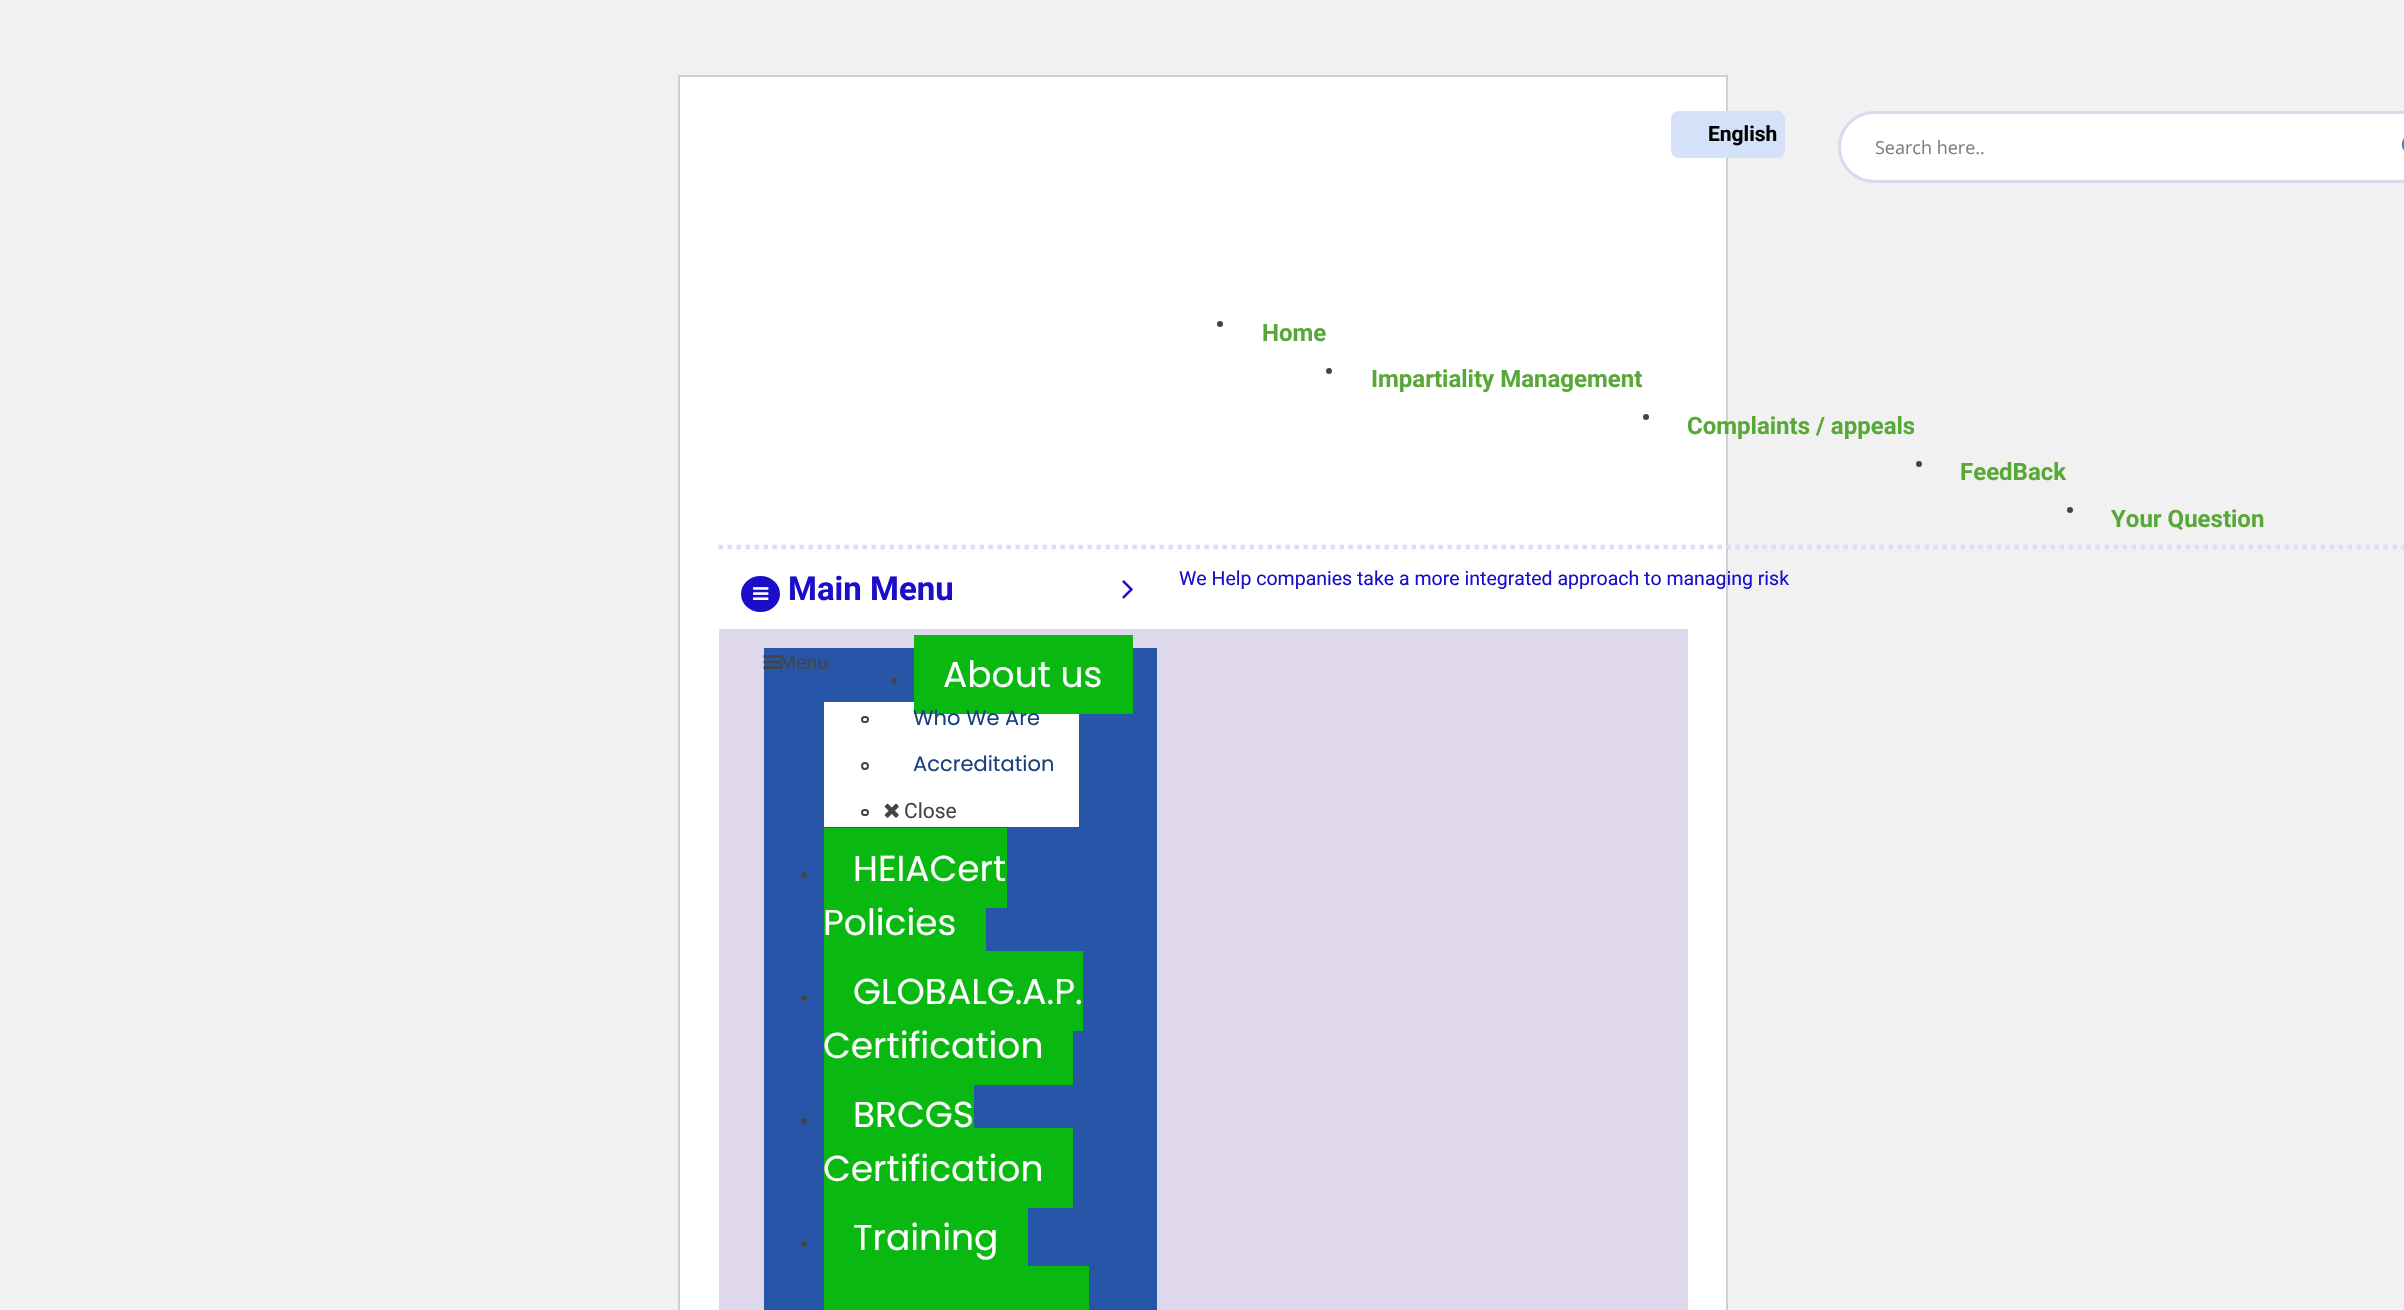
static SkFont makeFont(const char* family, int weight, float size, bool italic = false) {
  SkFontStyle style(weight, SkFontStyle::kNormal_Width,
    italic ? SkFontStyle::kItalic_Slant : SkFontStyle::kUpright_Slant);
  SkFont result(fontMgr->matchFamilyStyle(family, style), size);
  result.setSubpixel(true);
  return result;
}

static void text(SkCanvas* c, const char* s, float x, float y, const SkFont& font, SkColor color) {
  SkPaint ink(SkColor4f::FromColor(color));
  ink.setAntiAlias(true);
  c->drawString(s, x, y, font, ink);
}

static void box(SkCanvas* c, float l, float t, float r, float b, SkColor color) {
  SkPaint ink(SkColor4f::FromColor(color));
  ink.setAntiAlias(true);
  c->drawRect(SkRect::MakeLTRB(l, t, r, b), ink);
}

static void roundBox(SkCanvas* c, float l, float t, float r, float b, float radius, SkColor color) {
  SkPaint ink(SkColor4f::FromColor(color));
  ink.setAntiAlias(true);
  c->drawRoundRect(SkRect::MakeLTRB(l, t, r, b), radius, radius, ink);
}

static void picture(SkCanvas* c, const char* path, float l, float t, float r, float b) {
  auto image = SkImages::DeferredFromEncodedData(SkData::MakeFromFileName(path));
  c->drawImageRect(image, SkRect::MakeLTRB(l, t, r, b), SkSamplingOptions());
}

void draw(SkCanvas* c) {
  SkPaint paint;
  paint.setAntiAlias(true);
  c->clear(0xfff1f1f1);
  paint.setColor(0xffffffff);
  c->drawRect(SkRect::MakeLTRB(679, 76, 1727, 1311), paint);
  paint.setStyle(SkPaint::kStroke_Style);
  paint.setStrokeWidth(2);
  paint.setColor(0xffccd0d4);
  c->drawRect(SkRect::MakeLTRB(679, 76, 1727, 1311), paint);
  paint.setStrokeWidth(4.5f);
  paint.setColor(0xffe3dbf3);
  paint.setPathEffect(SkDashPathEffect::Make({{4.5f, 4.5f}}, 0));
  c->drawPath(SkPathBuilder().moveTo(718.5f, 547).lineTo(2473.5f, 547).detach(), paint);
  paint.setPathEffect(nullptr);
  roundBox(c, 1671, 111, 1785, 158, 8, 0xffd5e1f9);
  SkFont face1 = makeFont("Roboto", 700, 21);
  text(c, "English", 1708, 141, face1, 0xff000000);
  paint.setStyle(SkPaint::kFill_Style);
  paint.setColor(0xffffffff);
  c->drawRoundRect(SkRect::MakeLTRB(1839.5f, 112.5f, 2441.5f, 181.5f), 34.5f, 34.5f, paint);
  paint.setStyle(SkPaint::kStroke_Style);
  paint.setStrokeWidth(3);
  paint.setColor(0xffdfd7ec);
  c->drawRoundRect(SkRect::MakeLTRB(1839.5f, 112.5f, 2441.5f, 181.5f), 34.5f, 34.5f, paint);
  SkFont face2 = makeFont("Open Sans", 400, 18);
  text(c, "Search here..", 1875, 154, face2, 0xff7d7d7d);
  picture(c, "img_01.png", 2401, 138, 2404, 151);
  paint.setStyle(SkPaint::kFill_Style);
  paint.setColor(0xff444444);
  c->drawCircle(1220, 324, 3, paint);
  SkFont face3 = makeFont("Roboto", 700, 24);
  text(c, "Home", 1262, 341, face3, 0xff58a837);
  c->drawCircle(1329, 371, 3, paint);
  text(c, "Impartiality Management", 1371, 387, face3, 0xff58a837);
  c->drawCircle(1646, 417, 3, paint);
  text(c, "Complaints / appeals", 1687, 434, face3, 0xff58a837);
  c->drawCircle(1919, 464, 3, paint);
  text(c, "FeedBack", 1960, 480, face3, 0xff58a837);
  c->drawCircle(2070, 510, 3, paint);
  text(c, "Your Question", 2111, 527, face3, 0xff58a837);
  paint.setColor(0xff1a0eca);
  c->drawOval(SkRect::MakeLTRB(741, 576, 780, 612), paint);
  picture(c, "img_02.png", 753, 587, 769, 600);
  SkFont face4 = makeFont("Roboto", 700, 33);
  text(c, "Main Menu", 788, 600, face4, 0xff1a0eca);
  picture(c, "img_03.png", 1122, 580, 1133, 599);
  SkFont face5 = makeFont("Roboto", 400, 19.5f);
  text(c, "We Help companies take a more integrated approach to managing risk", 1179, 585, face5, 0xff1a0eca);
  box(c, 719, 629, 1688, 1310, 0xffdfd7ec);
  box(c, 764, 648, 1157, 1310, 0xff2755a7);
  picture(c, "img_04.png", 763, 655, 781, 669);
  text(c, "Menu", 779, 669, face5, 0xff444444);
  paint.setColor(0xff444444);
  c->drawCircle(894, 681, 3, paint);
  box(c, 824, 702, 1079, 827, 0xffffffff);
  box(c, 914, 635, 1133, 714, 0xff09b911);
  SkFont face6 = makeFont("Poppins", 400, 36);
  text(c, "About us", 943, 687, face6, 0xffffffff);
  paint.setStyle(SkPaint::kStroke_Style);
  paint.setStrokeWidth(2);
  c->drawRoundRect(SkRect::MakeLTRB(862, 717, 868, 722), 2.5f, 2.5f, paint);
  SkFont face7 = makeFont("Poppins", 400, 21);
  text(c, "Who We Are", 913, 725, face7, 0xff1a407f);
  c->drawCircle(865, 766, 3, paint);
  text(c, "Accreditation", 913, 771, face7, 0xff1a407f);
  c->drawRoundRect(SkRect::MakeLTRB(862, 810, 868, 815), 2.5f, 2.5f, paint);
  picture(c, "img_05.png", 884, 803, 899, 818);
  SkFont face8 = makeFont("Roboto", 400, 21);
  text(c, "Close", 904, 818, face8, 0xff444444);
  paint.setStyle(SkPaint::kFill_Style);
  c->drawCircle(804, 875, 3, paint);
  box(c, 824, 828, 1007, 908, 0xff09b911);
  text(c, "HEIACert", 853, 881, face6, 0xffffffff);
  box(c, 824, 908, 986, 951, 0xff09b911);
  text(c, "Policies", 823, 935, face6, 0xffffffff);
  c->drawCircle(804, 998, 3, paint);
  box(c, 824, 951, 1083, 1031, 0xff09b911);
  text(c, "GLOBALG.A.P.", 853, 1004, face6, 0xffffffff);
  box(c, 824, 1031, 1073, 1085, 0xff09b911);
  text(c, "Certification", 823, 1058, face6, 0xffffffff);
  c->drawCircle(804, 1121, 3, paint);
  box(c, 824, 1085, 974, 1128, 0xff09b911);
  text(c, "BRCGS", 853, 1127, face6, 0xffffffff);
  box(c, 824, 1128, 1073, 1208, 0xff09b911);
  text(c, "Certification", 823, 1181, face6, 0xffffffff);
  c->drawCircle(804, 1244, 3, paint);
  box(c, 824, 1208, 1028, 1266, 0xff09b911);
  text(c, "Training", 853, 1250, face6, 0xffffffff);
  box(c, 824, 1266, 1089, 1310, 0xff09b911);
}
